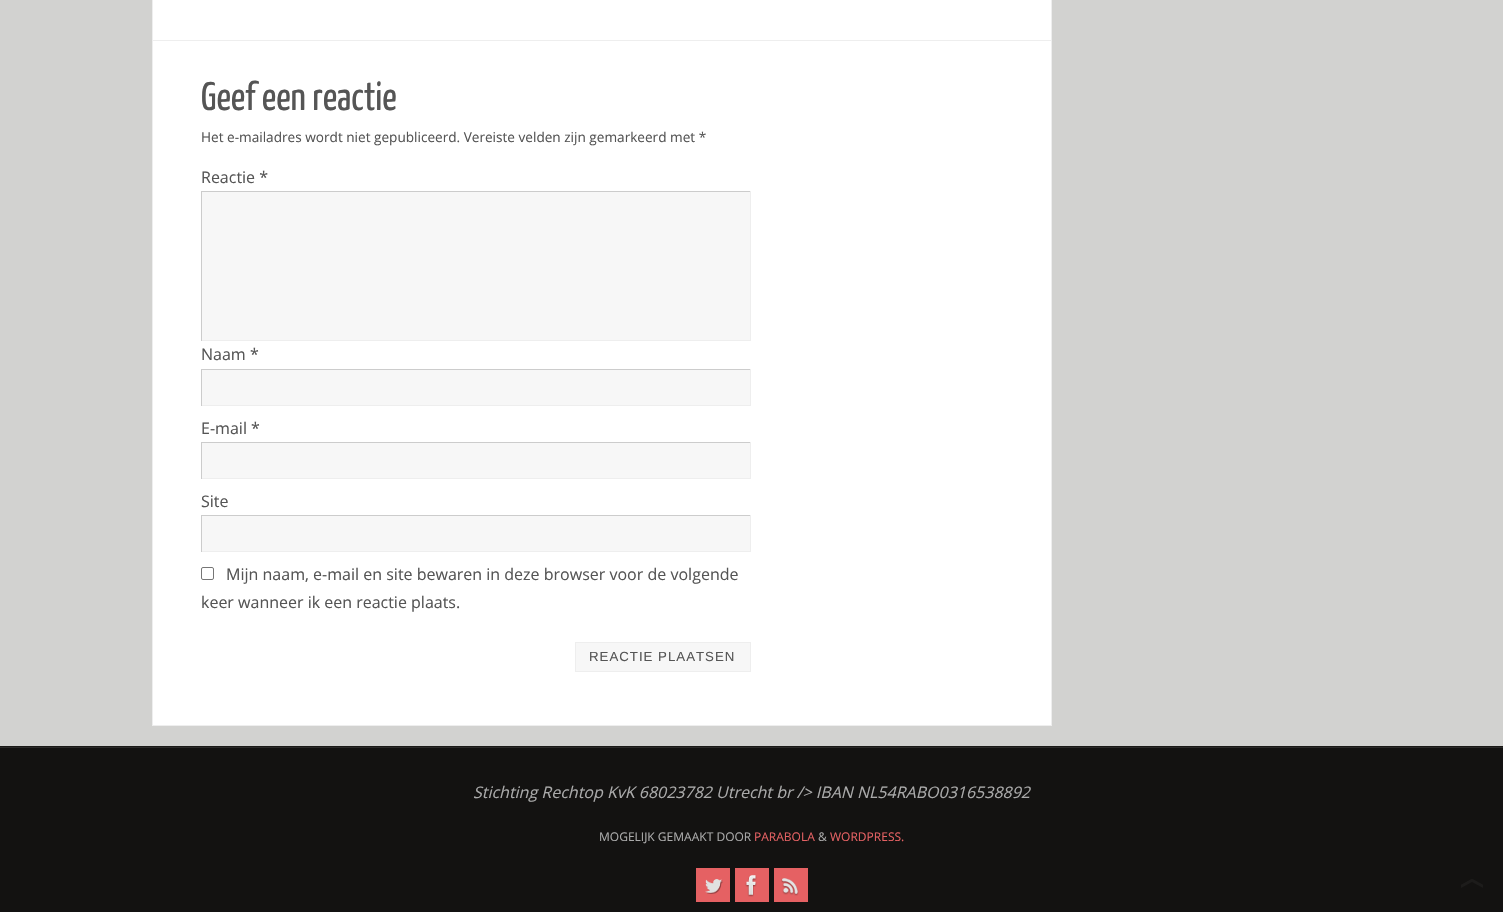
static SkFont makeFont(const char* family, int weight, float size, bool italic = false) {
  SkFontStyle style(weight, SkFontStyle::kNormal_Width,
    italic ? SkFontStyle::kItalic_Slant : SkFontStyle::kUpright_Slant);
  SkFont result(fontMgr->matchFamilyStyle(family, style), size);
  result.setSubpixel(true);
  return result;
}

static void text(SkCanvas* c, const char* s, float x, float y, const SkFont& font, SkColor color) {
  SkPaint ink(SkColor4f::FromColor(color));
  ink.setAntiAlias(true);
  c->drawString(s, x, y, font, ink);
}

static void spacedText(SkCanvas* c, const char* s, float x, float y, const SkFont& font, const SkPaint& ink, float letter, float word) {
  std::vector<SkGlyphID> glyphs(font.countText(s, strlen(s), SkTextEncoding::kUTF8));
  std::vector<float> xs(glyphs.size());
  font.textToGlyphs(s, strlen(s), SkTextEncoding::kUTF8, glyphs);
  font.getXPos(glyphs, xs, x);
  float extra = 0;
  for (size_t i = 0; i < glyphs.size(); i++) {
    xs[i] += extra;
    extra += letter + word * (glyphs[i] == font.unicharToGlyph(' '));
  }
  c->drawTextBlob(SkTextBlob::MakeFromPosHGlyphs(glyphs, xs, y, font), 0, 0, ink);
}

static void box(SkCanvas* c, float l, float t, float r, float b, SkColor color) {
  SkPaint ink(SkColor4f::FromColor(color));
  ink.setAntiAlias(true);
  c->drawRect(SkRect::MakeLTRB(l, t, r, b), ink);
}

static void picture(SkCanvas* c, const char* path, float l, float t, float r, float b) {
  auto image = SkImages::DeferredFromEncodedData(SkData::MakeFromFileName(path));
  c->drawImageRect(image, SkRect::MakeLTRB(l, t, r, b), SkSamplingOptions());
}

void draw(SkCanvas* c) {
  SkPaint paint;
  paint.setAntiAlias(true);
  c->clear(0xffd2d2d0);
  paint.setColor(0xffffffff);
  c->drawRect(SkRect::MakeLTRB(152.5f, 40.5f, 1051.5f, 725.5f), paint);
  paint.setStyle(SkPaint::kStroke_Style);
  paint.setStrokeWidth(1);
  paint.setColor(0xffeeeeee);
  c->drawRect(SkRect::MakeLTRB(152.5f, 40.5f, 1051.5f, 725.5f), paint);
  paint.setStyle(SkPaint::kFill_Style);
  paint.setColor(0xffffffff);
  c->drawRect(SkRect::MakeLTRB(152.5f, -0.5f, 1051.5f, 40.5f), paint);
  paint.setStyle(SkPaint::kStroke_Style);
  paint.setColor(0xffeeeeee);
  c->drawRect(SkRect::MakeLTRB(152.5f, -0.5f, 1051.5f, 40.5f), paint);
  SkFont face1 = makeFont("Yanone Kaffeesatz", 400, 40);
  text(c, "Geef een reactie", 201, 110, face1, 0xff555555);
  SkFont face2 = makeFont("Open Sans", 400, 13.6f);
  text(c, "Het e-mailadres wordt niet gepubliceerd. Vereiste velden zijn gemarkeerd met *", 201, 142, face2, 0xff555555);
  SkFont face3 = makeFont("Open Sans", 400, 16);
  text(c, "Reactie *", 201, 183, face3, 0xff555555);
  box(c, 202, 192, 750, 340, 0xfff7f7f7);
  box(c, 201, 191, 751, 192, 0xffcccccc);
  box(c, 750, 191, 751, 341, 0xffeeeeee);
  box(c, 201, 340, 751, 341, 0xffeeeeee);
  box(c, 201, 191, 202, 341, 0xffcccccc);
  text(c, "Naam *", 201, 360, face3, 0xff555555);
  box(c, 202, 370, 750, 405, 0xfff7f7f7);
  box(c, 201, 369, 751, 370, 0xffcccccc);
  box(c, 750, 369, 751, 406, 0xffeeeeee);
  box(c, 201, 405, 751, 406, 0xffeeeeee);
  box(c, 201, 369, 202, 406, 0xffcccccc);
  text(c, "E-mail *", 201, 434, face3, 0xff555555);
  box(c, 202, 443, 750, 478, 0xfff7f7f7);
  box(c, 201, 442, 751, 443, 0xffcccccc);
  box(c, 750, 442, 751, 479, 0xffeeeeee);
  box(c, 201, 478, 751, 479, 0xffeeeeee);
  box(c, 201, 442, 202, 479, 0xffcccccc);
  text(c, "Site", 201, 507, face3, 0xff555555);
  box(c, 202, 516, 750, 551, 0xfff7f7f7);
  box(c, 201, 515, 751, 516, 0xffcccccc);
  box(c, 750, 515, 751, 552, 0xffeeeeee);
  box(c, 201, 551, 751, 552, 0xffeeeeee);
  box(c, 201, 515, 202, 552, 0xffcccccc);
  paint.setColor(0xff767676);
  c->drawRoundRect(SkRect::MakeLTRB(201.5f, 567.5f, 213.5f, 579.5f), 1.5f, 1.5f, paint);
  text(c, "Mijn naam, e-mail en site bewaren in deze browser voor de volgende", 226, 580, face3, 0xff555555);
  text(c, "keer wanneer ik een reactie plaats.", 201, 608, face3, 0xff555555);
  paint.setStyle(SkPaint::kFill_Style);
  paint.setColor(0xfff7f7f7);
  c->drawRect(SkRect::MakeLTRB(575.5f, 642.5f, 750.5f, 671.5f), paint);
  paint.setStyle(SkPaint::kStroke_Style);
  paint.setColor(0xffeeeeee);
  c->drawRect(SkRect::MakeLTRB(575.5f, 642.5f, 750.5f, 671.5f), paint);
  SkFont face4 = makeFont("Liberation Sans", 400, 13.25f);
  paint.setStyle(SkPaint::kFill_Style);
  paint.setColor(0xff555555);
  spacedText(c, "REACTIE PLAATSEN", 589, 661, face4, paint, 1, 0);
  box(c, 0, 746, 1503, 747, 0xff1a1917);
  box(c, 0, 748, 1503, 912, 0xff131211);
  box(c, 0, 747, 1503, 748, 0xff2b2a29);
  SkFont face5 = makeFont("Open Sans", 400, 16, true);
  text(c, "Stichting Rechtop KvK 68023782 Utrecht br /> IBAN NL54RABO0316538892", 473, 798, face5, 0xffaaaaaa);
  SkFont face6 = makeFont("Open Sans", 400, 12);
  text(c, "MOGELIJK GEMAAKT DOOR", 599, 841, face6, 0xffaaaaaa);
  text(c, "PARABOLA", 754, 841, face6, 0xffe56163);
  text(c, "&", 818, 841, face6, 0xffaaaaaa);
  text(c, "WORDPRESS.", 830, 841, face6, 0xffe56163);
  box(c, 696, 868, 730, 902, 0xffe56163);
  picture(c, "img_01.png", 705, 879, 723, 894);
  box(c, 735, 868, 769, 902, 0xffe56163);
  picture(c, "img_02.png", 745, 875, 757, 897);
  box(c, 774, 868, 808, 902, 0xffe56163);
  picture(c, "img_03.png", 781, 878, 799, 896);
  picture(c, "img_04.png", 1461, 879, 1483, 888);
}
